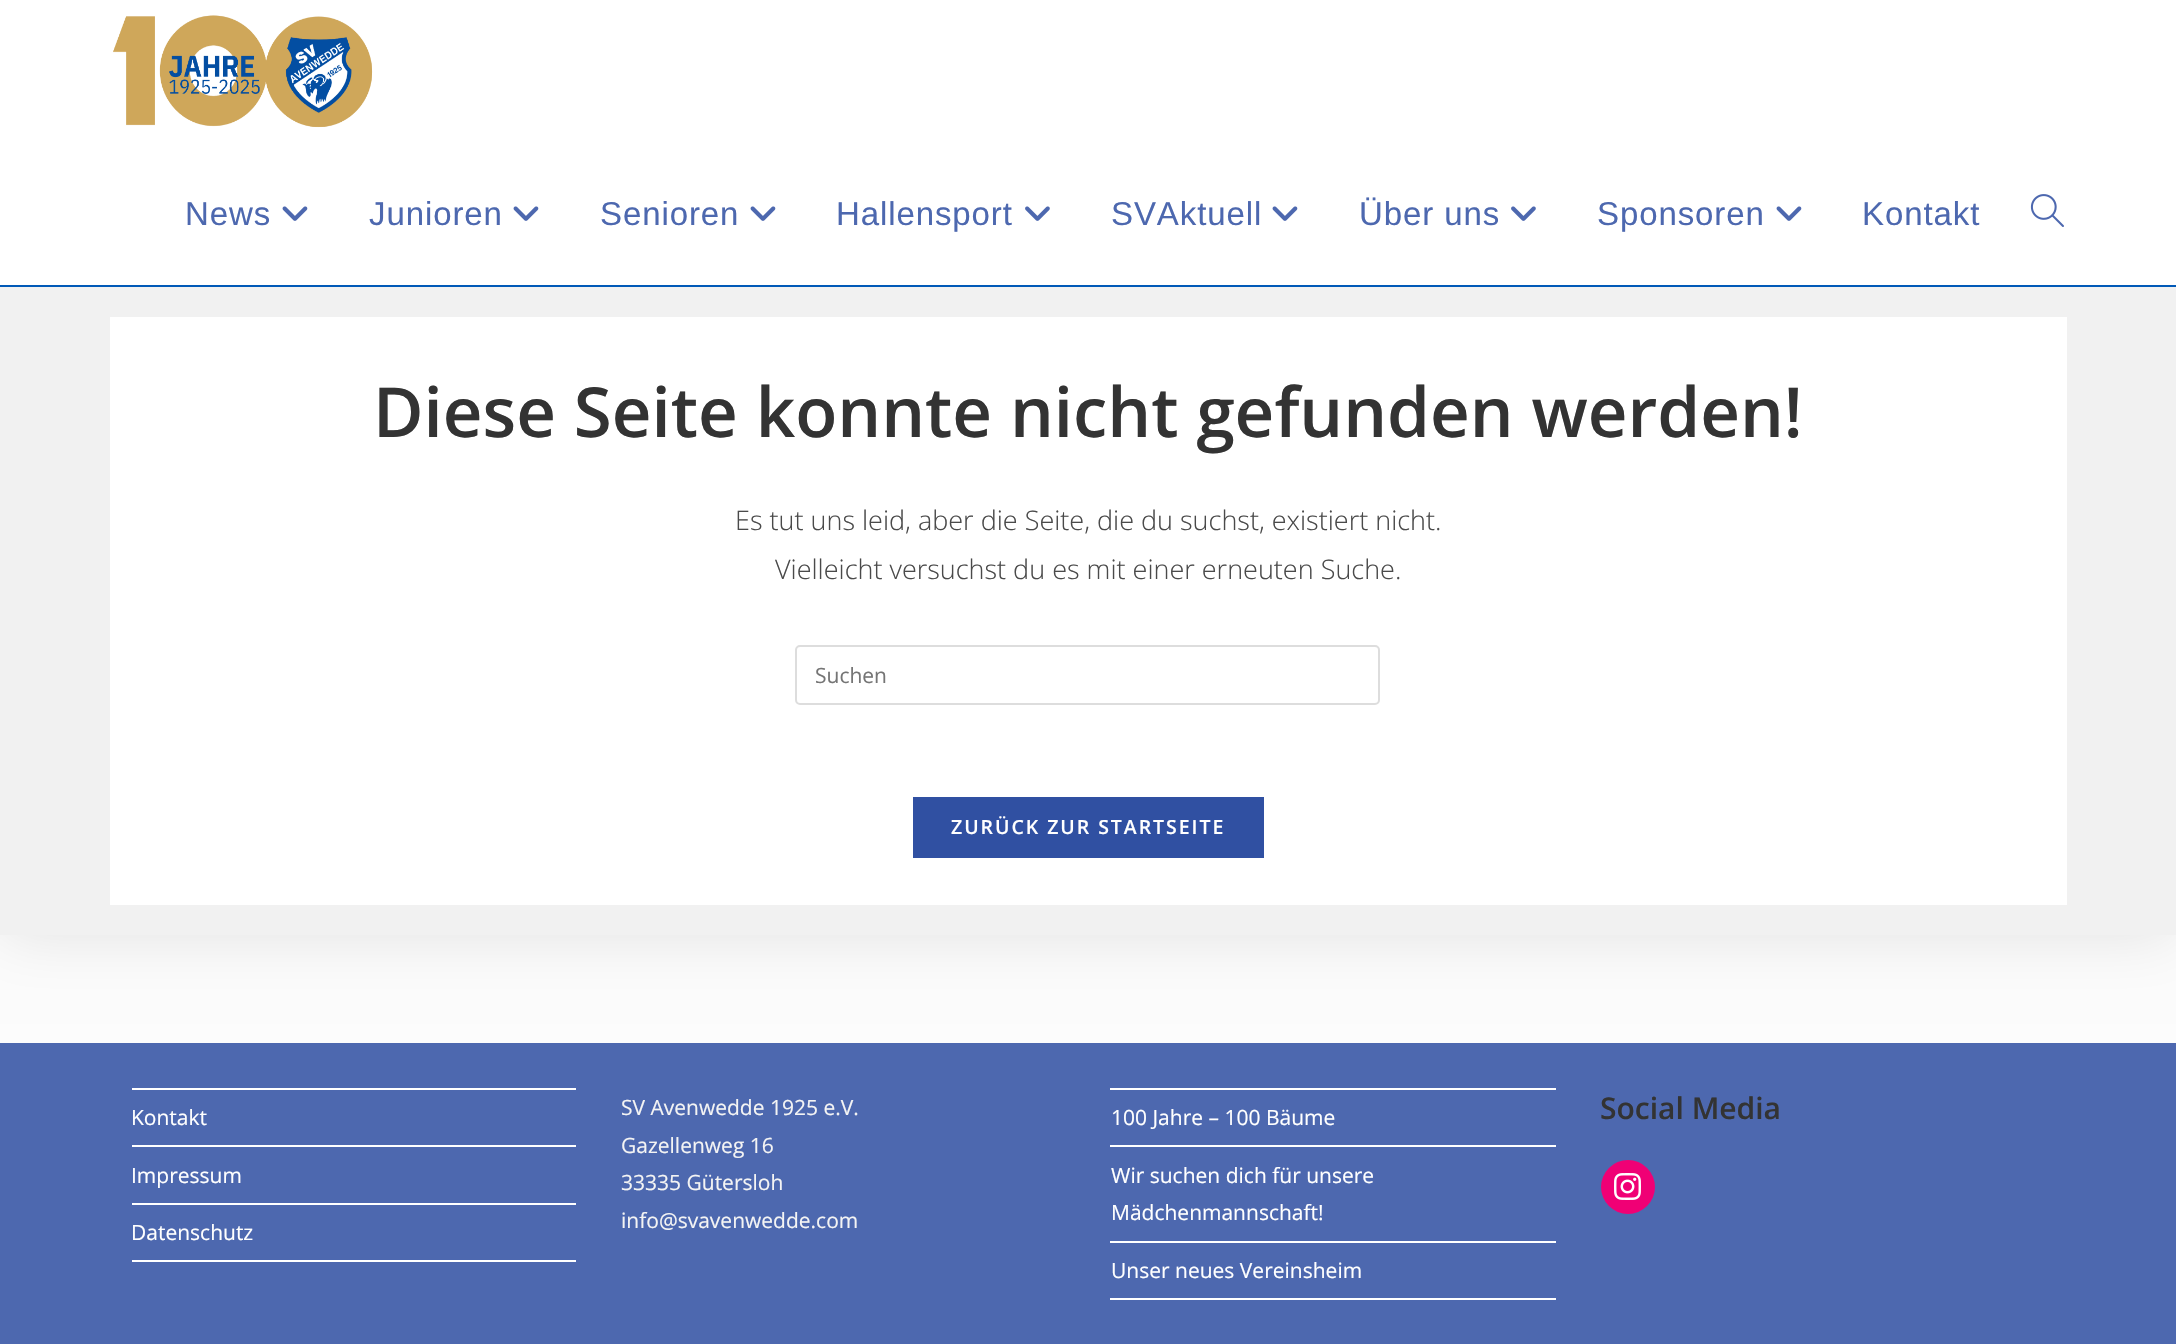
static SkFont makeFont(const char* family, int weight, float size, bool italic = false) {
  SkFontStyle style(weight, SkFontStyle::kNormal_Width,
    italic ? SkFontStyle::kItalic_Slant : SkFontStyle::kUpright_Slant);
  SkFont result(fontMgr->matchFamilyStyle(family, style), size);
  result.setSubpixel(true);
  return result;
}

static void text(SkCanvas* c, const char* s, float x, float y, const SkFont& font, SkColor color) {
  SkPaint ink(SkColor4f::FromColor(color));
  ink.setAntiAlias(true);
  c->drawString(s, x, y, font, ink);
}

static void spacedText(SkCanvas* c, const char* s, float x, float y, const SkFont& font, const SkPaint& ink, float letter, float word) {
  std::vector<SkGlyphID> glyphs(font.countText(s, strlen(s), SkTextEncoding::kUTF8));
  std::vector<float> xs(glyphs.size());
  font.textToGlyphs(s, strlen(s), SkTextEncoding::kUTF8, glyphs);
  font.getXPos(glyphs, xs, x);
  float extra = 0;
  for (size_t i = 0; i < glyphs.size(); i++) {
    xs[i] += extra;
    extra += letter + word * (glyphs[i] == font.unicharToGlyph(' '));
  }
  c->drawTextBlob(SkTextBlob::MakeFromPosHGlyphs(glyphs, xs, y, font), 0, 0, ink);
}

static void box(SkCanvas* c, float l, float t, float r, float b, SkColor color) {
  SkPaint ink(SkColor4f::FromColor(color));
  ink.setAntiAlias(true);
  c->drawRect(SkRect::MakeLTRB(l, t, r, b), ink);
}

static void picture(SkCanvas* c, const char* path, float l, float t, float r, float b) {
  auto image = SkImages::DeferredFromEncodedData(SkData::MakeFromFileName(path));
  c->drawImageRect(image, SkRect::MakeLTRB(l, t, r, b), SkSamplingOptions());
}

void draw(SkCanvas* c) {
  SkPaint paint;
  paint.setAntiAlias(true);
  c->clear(0xfffcfcfc);
  paint.setColor(0x1a000000);
  paint.setMaskFilter(SkMaskFilter::MakeBlur(kNormal_SkBlurStyle, 30));
  c->drawRect(SkRect::MakeLTRB(0, 287, 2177, 935), paint);
  paint.setMaskFilter(nullptr);
  box(c, 0, 0, 2176, 285, 0xffffffff);
  box(c, 0, 285, 2176, 287, 0xff0159b7);
  picture(c, "img_01.png", 113, 15, 373, 128);
  SkFont face1 = makeFont("Liberation Sans", 400, 33);
  paint.setColor(0xff4d68af);
  spacedText(c, "News", 185, 225, face1, paint, 0.9f, 0);
  picture(c, "img_02.png", 282, 206, 308, 221);
  spacedText(c, "Junioren", 369, 225, face1, paint, 0.9f, 0);
  picture(c, "img_02.png", 513, 206, 539, 221);
  spacedText(c, "Senioren", 600, 225, face1, paint, 0.9f, 0);
  picture(c, "img_02.png", 750, 206, 776, 221);
  spacedText(c, "Hallensport", 836, 225, face1, paint, 0.9f, 0);
  picture(c, "img_03.png", 1025, 206, 1050, 221);
  spacedText(c, "SVAktuell", 1111, 225, face1, paint, 0.9f, 0);
  picture(c, "img_02.png", 1272, 206, 1298, 221);
  spacedText(c, "Über uns", 1359, 225, face1, paint, 0.9f, 0);
  picture(c, "img_03.png", 1511, 206, 1536, 221);
  spacedText(c, "Sponsoren", 1597, 225, face1, paint, 0.9f, 0);
  picture(c, "img_02.png", 1776, 206, 1802, 221);
  spacedText(c, "Kontakt", 1862, 225, face1, paint, 0.9f, 0);
  picture(c, "img_04.png", 2030, 194, 2064, 227);
  box(c, 0, 287, 2176, 935, 0xfff1f1f1);
  box(c, 110, 317, 2067, 905, 0xffffffff);
  SkFont face2 = makeFont("Open Sans", 600, 69);
  text(c, "Diese Seite konnte nicht gefunden werden!", 373, 437, face2, 0xff333333);
  SkFont face3 = makeFont("Open Sans", 300, 27);
  text(c, "Es tut uns leid, aber die Seite, die du suchst, existiert nicht.", 735, 530, face3, 0xff4a4a4a);
  text(c, "Vielleicht versuchst du es mit einer erneuten Suche.", 775, 579, face3, 0xff4a4a4a);
  paint.setStyle(SkPaint::kStroke_Style);
  paint.setStrokeWidth(2);
  paint.setColor(0xffdddddd);
  c->drawRoundRect(SkRect::MakeLTRB(796, 646, 1379, 704), 4, 4, paint);
  SkFont face4 = makeFont("Open Sans", 400, 21);
  text(c, "Suchen", 815, 683, face4, 0xff757575);
  box(c, 913, 797, 1264, 858, 0xff3050a2);
  SkFont face5 = makeFont("Open Sans", 600, 19.5f);
  paint.setStyle(SkPaint::kFill_Style);
  paint.setColor(0xffffffff);
  spacedText(c, "ZURÜCK ZUR STARTSEITE", 951, 834, face5, paint, 1.95f, 0);
  box(c, 0, 1043, 2176, 1344, 0xff4d68af);
  box(c, 132, 1088, 576, 1090, 0xffffffff);
  box(c, 132, 1145, 576, 1147, 0xffffffff);
  text(c, "Kontakt", 131, 1125, face4, 0xffffffff);
  box(c, 132, 1203, 576, 1205, 0xffffffff);
  text(c, "Impressum", 131, 1183, face4, 0xffffffff);
  box(c, 132, 1260, 576, 1262, 0xffffffff);
  text(c, "Datenschutz", 131, 1240, face4, 0xffffffff);
  text(c, "SV Avenwedde 1925 e.V.", 621, 1115, face4, 0xfff4f4f4);
  text(c, "Gazellenweg 16", 621, 1153, face4, 0xfff4f4f4);
  text(c, "33335 Gütersloh", 621, 1190, face4, 0xfff4f4f4);
  text(c, "info@svavenwedde.com", 621, 1228, face4, 0xfff4f4f4);
  box(c, 1110, 1088, 1556, 1090, 0xffffffff);
  box(c, 1110, 1145, 1556, 1147, 0xffffffff);
  text(c, "100 Jahre – 100 Bäume", 1111, 1125, face4, 0xffffffff);
  box(c, 1110, 1241, 1556, 1243, 0xffffffff);
  text(c, "Wir suchen dich für unsere", 1111, 1183, face4, 0xffffffff);
  text(c, "Mädchenmannschaft!", 1111, 1220, face4, 0xffffffff);
  box(c, 1110, 1298, 1556, 1300, 0xffffffff);
  text(c, "Unser neues Vereinsheim", 1111, 1278, face4, 0xffffffff);
  SkFont face6 = makeFont("Open Sans", 600, 30);
  text(c, "Social Media", 1600, 1119, face6, 0xff333333);
  paint.setColor(0xfff00075);
  c->drawCircle(1628, 1187, 27, paint);
  picture(c, "img_05.png", 1614, 1173, 1641, 1200);
}
